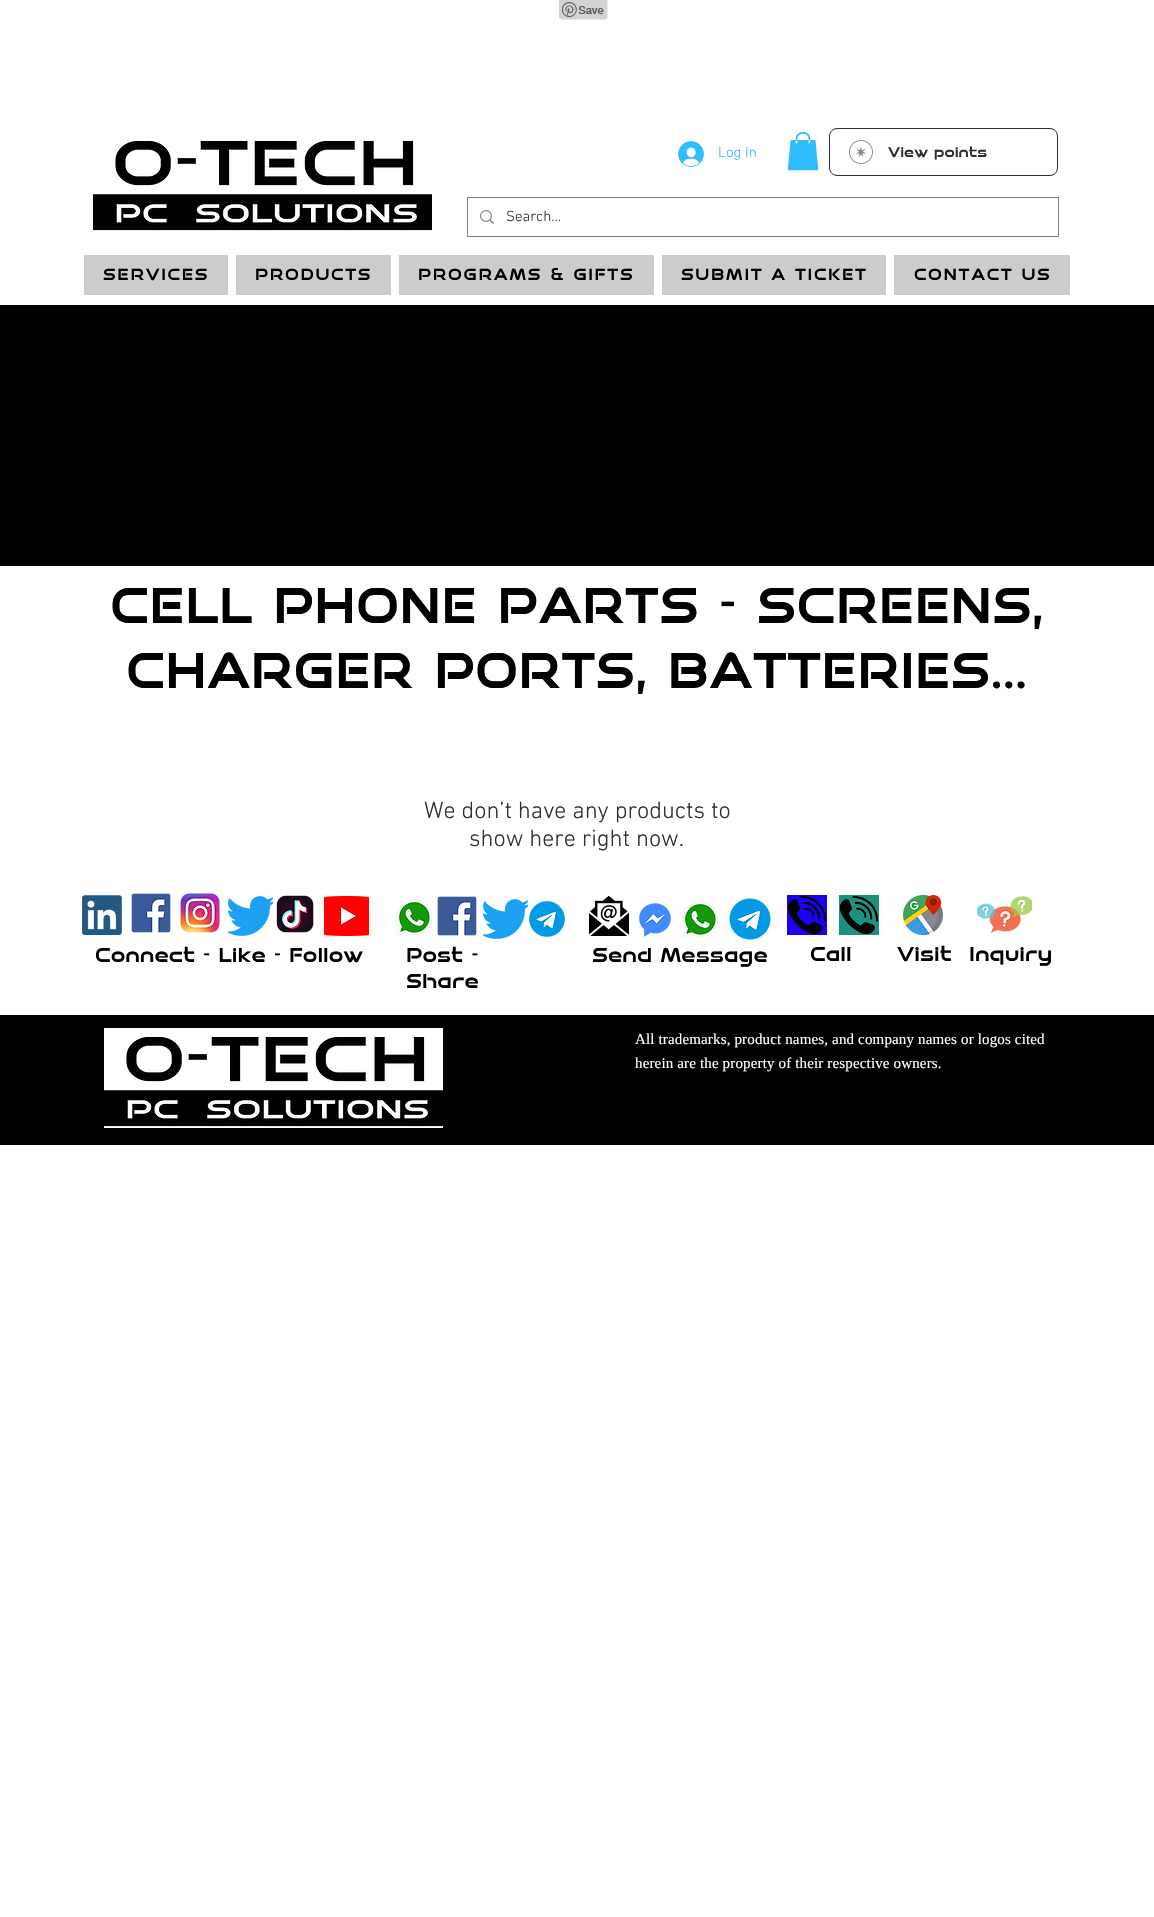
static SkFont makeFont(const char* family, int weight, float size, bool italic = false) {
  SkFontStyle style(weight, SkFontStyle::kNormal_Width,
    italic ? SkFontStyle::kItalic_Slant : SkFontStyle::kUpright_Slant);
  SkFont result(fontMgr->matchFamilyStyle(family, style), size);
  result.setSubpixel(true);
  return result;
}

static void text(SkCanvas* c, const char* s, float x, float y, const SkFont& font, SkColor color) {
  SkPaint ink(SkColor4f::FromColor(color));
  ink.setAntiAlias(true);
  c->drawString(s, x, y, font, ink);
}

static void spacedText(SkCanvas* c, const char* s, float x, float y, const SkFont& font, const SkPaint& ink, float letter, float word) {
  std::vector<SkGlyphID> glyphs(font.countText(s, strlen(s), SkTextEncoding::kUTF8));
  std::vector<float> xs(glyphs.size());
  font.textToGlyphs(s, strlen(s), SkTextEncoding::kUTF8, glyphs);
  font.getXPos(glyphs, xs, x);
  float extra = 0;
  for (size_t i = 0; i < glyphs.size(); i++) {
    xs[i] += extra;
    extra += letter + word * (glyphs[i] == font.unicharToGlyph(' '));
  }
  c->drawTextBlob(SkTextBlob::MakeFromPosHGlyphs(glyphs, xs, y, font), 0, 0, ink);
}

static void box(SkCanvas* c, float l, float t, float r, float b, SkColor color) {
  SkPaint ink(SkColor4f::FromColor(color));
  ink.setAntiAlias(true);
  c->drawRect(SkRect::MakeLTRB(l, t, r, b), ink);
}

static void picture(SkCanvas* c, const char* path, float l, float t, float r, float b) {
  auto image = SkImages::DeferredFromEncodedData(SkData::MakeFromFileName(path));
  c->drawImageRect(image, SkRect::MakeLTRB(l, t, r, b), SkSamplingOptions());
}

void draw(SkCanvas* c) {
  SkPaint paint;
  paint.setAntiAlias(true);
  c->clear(0xffffffff);
  picture(c, "img_01.png", 559, 0, 608, 20);
  picture(c, "img_02.png", 93, 140, 432, 231);
  picture(c, "img_03.png", 678, 141, 704, 167);
  SkFont face1 = makeFont("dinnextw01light", 300, 15);
  text(c, "Log In", 718, 157, face1, 0xff30bdff);
  picture(c, "img_04.png", 787, 132, 819, 171);
  paint.setStyle(SkPaint::kStroke_Style);
  paint.setStrokeWidth(1);
  paint.setColor(0xff2f2e2e);
  c->drawRoundRect(SkRect::MakeLTRB(829.5f, 128.5f, 1057.5f, 175.5f), 7.5f, 7.5f, paint);
  picture(c, "img_05.png", 849, 140, 873, 164);
  SkFont face2 = makeFont("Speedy", 400, 14);
  text(c, "View points", 888, 157, face2, 0xff2f2e2e);
  paint.setColor(0xff828282);
  c->drawRect(SkRect::MakeLTRB(467.5f, 197.5f, 1058.5f, 236.5f), paint);
  picture(c, "img_06.png", 480, 210, 494, 224);
  text(c, "Search...", 506, 221, face1, 0xff2f2e2e);
  box(c, 84, 255, 228, 295, 0xffcccccc);
  SkFont face3 = makeFont("Speedy", 400, 16);
  paint.setStyle(SkPaint::kFill_Style);
  paint.setColor(0xff000000);
  spacedText(c, "SERVICES", 103, 280, face3, paint, 1.6f, 0);
  box(c, 236, 255, 391, 295, 0xffcccccc);
  spacedText(c, "PRODUCTS", 255, 280, face3, paint, 1.6f, 0);
  box(c, 399, 255, 654, 295, 0xffcccccc);
  spacedText(c, "PROGRAMS & GIFTS", 418, 280, face3, paint, 1.6f, 0);
  box(c, 662, 255, 886, 295, 0xffcccccc);
  spacedText(c, "SUBMIT A TICKET", 681, 280, face3, paint, 1.6f, 0);
  box(c, 894, 255, 1070, 295, 0xffcccccc);
  spacedText(c, "CONTACT US", 914, 280, face3, paint, 1.6f, 0);
  box(c, 0, 305, 1154, 566, 0xff000000);
  SkFont face4 = makeFont("Speedy", 400, 50);
  text(c, "CELL PHONE PARTS - SCREENS,", 110, 623, face4, 0xff000000);
  text(c, "CHARGER PORTS, BATTERIES...", 126, 688, face4, 0xff000000);
  SkFont face5 = makeFont("dinnextw01light", 300, 24);
  text(c, "We don’t have any products to", 424, 818, face5, 0xff2f2e2e);
  text(c, "show here right now.", 469, 846, face5, 0xff2f2e2e);
  picture(c, "img_07.png", 82, 895, 122, 935);
  picture(c, "img_08.png", 131, 893, 171, 933);
  picture(c, "img_09.png", 180, 893, 220, 933);
  picture(c, "img_10.png", 228, 896, 273, 936);
  picture(c, "img_11.png", 276, 895, 314, 933);
  picture(c, "img_12.png", 324, 896, 369, 936);
  picture(c, "img_13.png", 396, 899, 433, 936);
  picture(c, "img_08.png", 437, 896, 477, 936);
  picture(c, "img_10.png", 483, 899, 528, 939);
  picture(c, "img_14.png", 529, 901, 565, 937);
  picture(c, "img_15.png", 589, 896, 629, 936);
  picture(c, "img_16.png", 639, 903, 671, 937);
  picture(c, "img_13.png", 682, 901, 719, 938);
  picture(c, "img_17.png", 729, 898, 771, 940);
  picture(c, "img_18.png", 787, 895, 827, 935);
  picture(c, "img_19.png", 839, 895, 879, 935);
  picture(c, "img_20.png", 903, 895, 943, 935);
  picture(c, "img_21.png", 977, 896, 1032, 933);
  SkFont face6 = makeFont("Speedy", 400, 20);
  text(c, "Connect - Like - Follow", 95, 962, face6, 0xff000000);
  text(c, "Post -", 406, 962, face6, 0xff000000);
  text(c, "Share", 406, 988, face6, 0xff000000);
  text(c, "Send Message", 592, 962, face6, 0xff000000);
  text(c, "Call", 810, 961, face6, 0xff000000);
  text(c, "Visit", 897, 961, face6, 0xff000000);
  text(c, "Inquiry", 969, 961, face6, 0xff000000);
  box(c, 0, 1015, 1154, 1145, 0xff000000);
  picture(c, "img_22.png", 104, 1028, 443, 1128);
  SkFont face7 = makeFont("Liberation Serif", 400, 15);
  paint.setColor(0xffffffff);
  spacedText(c, "All trademarks, product names, and company names or logos cited", 635, 1044, face7, paint, 0.15f, 0);
  spacedText(c, "herein are the property of their respective owners.", 635, 1068, face7, paint, 0.15f, 0);
}
